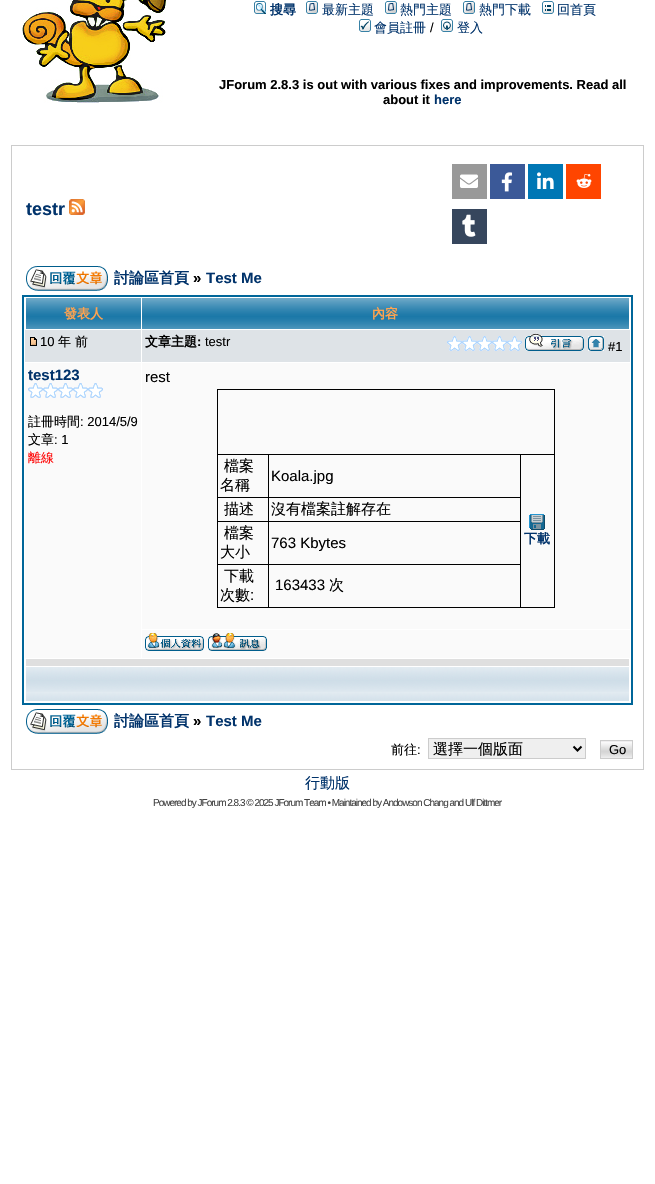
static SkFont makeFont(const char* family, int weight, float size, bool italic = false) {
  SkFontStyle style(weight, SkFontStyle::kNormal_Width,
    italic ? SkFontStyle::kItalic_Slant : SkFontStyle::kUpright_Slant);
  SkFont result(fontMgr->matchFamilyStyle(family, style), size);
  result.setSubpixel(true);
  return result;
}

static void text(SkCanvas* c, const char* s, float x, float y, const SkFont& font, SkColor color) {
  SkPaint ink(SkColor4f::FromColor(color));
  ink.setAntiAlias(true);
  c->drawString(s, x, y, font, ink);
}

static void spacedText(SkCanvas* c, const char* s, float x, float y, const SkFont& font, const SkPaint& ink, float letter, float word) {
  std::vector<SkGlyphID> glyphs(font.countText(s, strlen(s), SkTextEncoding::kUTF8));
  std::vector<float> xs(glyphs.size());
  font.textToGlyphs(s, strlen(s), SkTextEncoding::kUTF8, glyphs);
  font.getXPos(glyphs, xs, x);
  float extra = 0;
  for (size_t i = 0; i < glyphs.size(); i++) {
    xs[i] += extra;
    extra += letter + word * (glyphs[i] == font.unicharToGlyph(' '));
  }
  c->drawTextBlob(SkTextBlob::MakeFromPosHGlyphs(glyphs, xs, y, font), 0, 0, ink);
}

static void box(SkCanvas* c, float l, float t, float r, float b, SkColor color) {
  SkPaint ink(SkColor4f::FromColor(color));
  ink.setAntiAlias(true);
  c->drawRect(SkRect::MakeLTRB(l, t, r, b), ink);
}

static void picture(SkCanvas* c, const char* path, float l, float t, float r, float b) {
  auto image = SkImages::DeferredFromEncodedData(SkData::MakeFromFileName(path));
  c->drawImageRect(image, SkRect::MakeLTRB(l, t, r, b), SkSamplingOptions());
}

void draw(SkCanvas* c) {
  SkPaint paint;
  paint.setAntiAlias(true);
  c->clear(0xffffffff);
  picture(c, "img_01.png", 22, 0, 166, 103);
  picture(c, "img_02.png", 254, 1, 266, 14);
  SkFont face1 = makeFont("WenQuanYi Zen Hei", 700, 13);
  text(c, "搜尋", 270, 14, face1, 0xff01336b);
  picture(c, "img_03.png", 306, 1, 318, 14);
  SkFont face2 = makeFont("WenQuanYi Zen Hei", 500, 13);
  text(c, "最新主題", 322, 14, face2, 0xff01336b);
  picture(c, "img_03.png", 385, 1, 397, 14);
  text(c, "熱門主題", 400, 14, face2, 0xff01336b);
  picture(c, "img_03.png", 463, 1, 475, 14);
  text(c, "熱門下載", 479, 14, face2, 0xff01336b);
  picture(c, "img_04.png", 542, 1, 554, 14);
  text(c, "回首頁", 557, 14, face2, 0xff01336b);
  picture(c, "img_05.png", 359, 19, 371, 32);
  text(c, "會員註冊", 374, 32, face2, 0xff01336b);
  SkFont face3 = makeFont("Liberation Sans", 400, 13);
  text(c, "/", 430, 32, face3, 0xff000000);
  picture(c, "img_06.png", 441, 19, 453, 32);
  text(c, "登入", 457, 32, face2, 0xff01336b);
  SkFont face4 = makeFont("Liberation Sans", 700, 13);
  text(c, "JForum 2.8.3 is out with various fixes and improvements. Read all", 219, 89, face4, 0xff000000);
  text(c, "about it", 383, 104, face4, 0xff000000);
  text(c, "here", 434, 104, face4, 0xff01336b);
  paint.setStyle(SkPaint::kStroke_Style);
  paint.setStrokeWidth(1);
  paint.setColor(0xffcccccc);
  c->drawRect(SkRect::MakeLTRB(11.5f, 145.5f, 643.5f, 769.5f), paint);
  SkFont face5 = makeFont("Liberation Sans", 700, 18);
  text(c, "testr", 26, 215, face5, 0xff01336b);
  picture(c, "img_07.png", 69, 199, 85, 215);
  box(c, 452, 164, 487, 199, 0xff999999);
  picture(c, "img_08.png", 460, 174, 478, 188);
  box(c, 490, 164, 525, 199, 0xff3b5998);
  picture(c, "img_09.png", 501, 172, 513, 192);
  box(c, 528, 164, 563, 199, 0xff0077b5);
  picture(c, "img_10.png", 537, 172, 554, 189);
  box(c, 566, 164, 601, 199, 0xffff4500);
  picture(c, "img_11.png", 576, 174, 592, 188);
  box(c, 452, 209, 487, 244, 0xff36465d);
  picture(c, "img_12.png", 462, 214, 476, 237);
  picture(c, "img_13.png", 26, 266, 108, 291);
  SkFont face6 = makeFont("WenQuanYi Zen Hei", 700, 15);
  text(c, "討論區首頁", 114, 283, face6, 0xff01336b);
  SkFont face7 = makeFont("Liberation Sans", 700, 15);
  text(c, "»", 193, 283, face7, 0xff000000);
  text(c, "Test Me", 206, 283, face7, 0xff01336b);
  paint.setStrokeWidth(2);
  paint.setColor(0xff006699);
  c->drawRect(SkRect::MakeLTRB(23, 296, 632, 704), paint);
  picture(c, "img_14.png", 26, 298, 141, 329);
  text(c, "發表人", 64, 318, face1, 0xffffa34f);
  picture(c, "img_15.png", 142, 298, 629, 329);
  text(c, "內容", 372, 318, face1, 0xffffa34f);
  box(c, 25, 330, 141, 362, 0xffdee3e7);
  picture(c, "img_16.png", 30, 337, 37, 346);
  text(c, "10", 40, 346, face3, 0xff000000);
  text(c, "年 前", 58, 346, face2, 0xff000000);
  box(c, 142, 330, 630, 362, 0xffdee3e7);
  text(c, "文章主題", 145, 346, face1, 0xff000000);
  text(c, ":", 197, 346, face4, 0xff000000);
  text(c, "testr", 205, 346, face3, 0xff000000);
  picture(c, "img_17.png", 447, 336, 462, 351);
  picture(c, "img_17.png", 462, 336, 477, 351);
  picture(c, "img_17.png", 477, 336, 492, 351);
  picture(c, "img_17.png", 492, 336, 507, 351);
  picture(c, "img_17.png", 507, 336, 522, 351);
  picture(c, "img_18.png", 525, 333, 584, 351);
  picture(c, "img_19.png", 588, 336, 604, 351);
  text(c, "#1", 608, 351, face3, 0xff000000);
  box(c, 25, 363, 141, 658, 0xfffafafa);
  text(c, "test123", 28, 380, face7, 0xff01336b);
  picture(c, "img_20.png", 28, 383, 43, 398);
  picture(c, "img_20.png", 43, 383, 58, 398);
  picture(c, "img_20.png", 58, 383, 73, 398);
  picture(c, "img_20.png", 73, 383, 88, 398);
  picture(c, "img_20.png", 88, 383, 103, 398);
  text(c, "註冊時間", 28, 426, face2, 0xff000000);
  text(c, ": 2014/5/9", 80, 426, face3, 0xff000000);
  text(c, "文章", 28, 444, face2, 0xff000000);
  text(c, ": 1", 54, 444, face3, 0xff000000);
  text(c, "離線", 28, 462, face2, 0xffff0000);
  box(c, 142, 363, 630, 629, 0xfffafafa);
  SkFont face8 = makeFont("Liberation Sans", 400, 15);
  text(c, "rest", 145, 382, face8, 0xff000000);
  box(c, 217, 389, 555, 390, 0xff000000);
  box(c, 554, 389, 555, 608, 0xff000000);
  box(c, 217, 607, 555, 608, 0xff000000);
  box(c, 217, 389, 218, 608, 0xff000000);
  box(c, 268, 497, 521, 498, 0xff000000);
  box(c, 268, 521, 521, 522, 0xff000000);
  box(c, 268, 564, 521, 565, 0xff000000);
  box(c, 268, 564, 269, 608, 0xff000000);
  box(c, 217, 564, 269, 565, 0xff000000);
  box(c, 268, 521, 269, 565, 0xff000000);
  box(c, 217, 521, 269, 522, 0xff000000);
  box(c, 268, 497, 269, 522, 0xff000000);
  box(c, 217, 497, 269, 498, 0xff000000);
  box(c, 268, 454, 269, 498, 0xff000000);
  box(c, 520, 564, 521, 608, 0xff000000);
  box(c, 520, 521, 521, 565, 0xff000000);
  box(c, 520, 454, 521, 522, 0xff000000);
  box(c, 217, 454, 555, 455, 0xff000000);
  SkFont face9 = makeFont("WenQuanYi Zen Hei", 500, 15);
  text(c, "檔案", 224, 471, face9, 0xff000000);
  text(c, "名稱", 220, 490, face9, 0xff000000);
  text(c, "Koala.jpg", 271, 481, face8, 0xff000000);
  picture(c, "img_21.png", 529, 514, 545, 530);
  text(c, "下載", 524, 543, face1, 0xff01336b);
  text(c, "描述", 224, 514, face9, 0xff000000);
  text(c, "沒有檔案註解存在", 271, 514, face9, 0xff000000);
  text(c, "檔案", 224, 538, face9, 0xff000000);
  text(c, "大小", 220, 557, face9, 0xff000000);
  text(c, "763 Kbytes", 271, 548, face8, 0xff000000);
  text(c, "下載", 224, 581, face9, 0xff000000);
  text(c, "次數", 220, 600, face9, 0xff000000);
  text(c, ":", 250, 600, face8, 0xff000000);
  text(c, "163433", 275, 590, face8, 0xff000000);
  text(c, "次", 329, 590, face9, 0xff000000);
  box(c, 142, 630, 630, 658, 0xfffafafa);
  picture(c, "img_22.png", 145, 633, 204, 651);
  picture(c, "img_23.png", 208, 633, 267, 651);
  box(c, 25, 659, 630, 666, 0xffdfdfdf);
  box(c, 629, 659, 630, 666, 0xffffffff);
  box(c, 25, 659, 26, 666, 0xffffffff);
  picture(c, "img_24.png", 26, 667, 629, 701);
  picture(c, "img_13.png", 26, 709, 108, 734);
  text(c, "討論區首頁", 114, 726, face6, 0xff01336b);
  text(c, "»", 193, 726, face7, 0xff000000);
  text(c, "Test Me", 206, 726, face7, 0xff01336b);
  text(c, "前往", 391, 754, face2, 0xff000000);
  text(c, ":", 417, 754, face3, 0xff000000);
  paint.setStyle(SkPaint::kFill_Style);
  paint.setColor(0xffefefef);
  c->drawRect(SkRect::MakeLTRB(428.5f, 738.5f, 585.5f, 758.5f), paint);
  paint.setStyle(SkPaint::kStroke_Style);
  paint.setStrokeWidth(1);
  paint.setColor(0xffcccccc);
  c->drawRect(SkRect::MakeLTRB(428.5f, 738.5f, 585.5f, 758.5f), paint);
  paint.setStrokeWidth(2);
  paint.setColor(0xff000000);
  c->drawPath(SkPathBuilder().moveTo(573.5f, 746.5f).lineTo(577.5f, 750.5f).lineTo(581.5f, 746.5f).detach(), paint);
  text(c, "選擇一個版面", 433, 754, face9, 0xff000000);
  picture(c, "img_25.png", 601, 741, 632, 758);
  paint.setStrokeWidth(1);
  paint.setColor(0xffcccccc);
  c->drawRect(SkRect::MakeLTRB(600.5f, 740.5f, 632.5f, 758.5f), paint);
  text(c, "Go", 609, 754, face3, 0xff000000);
  text(c, "行動版", 305, 788, face9, 0xff01336b);
  SkFont face10 = makeFont("Liberation Sans", 400, 10);
  paint.setStyle(SkPaint::kFill_Style);
  paint.setColor(0xff444444);
  spacedText(c, "Powered by JForum 2.8.3 © 2025 JForum Team • Maintained by Andowson Chang and Ulf Dittmer", 153, 806, face10, paint, -1, 0);
}
